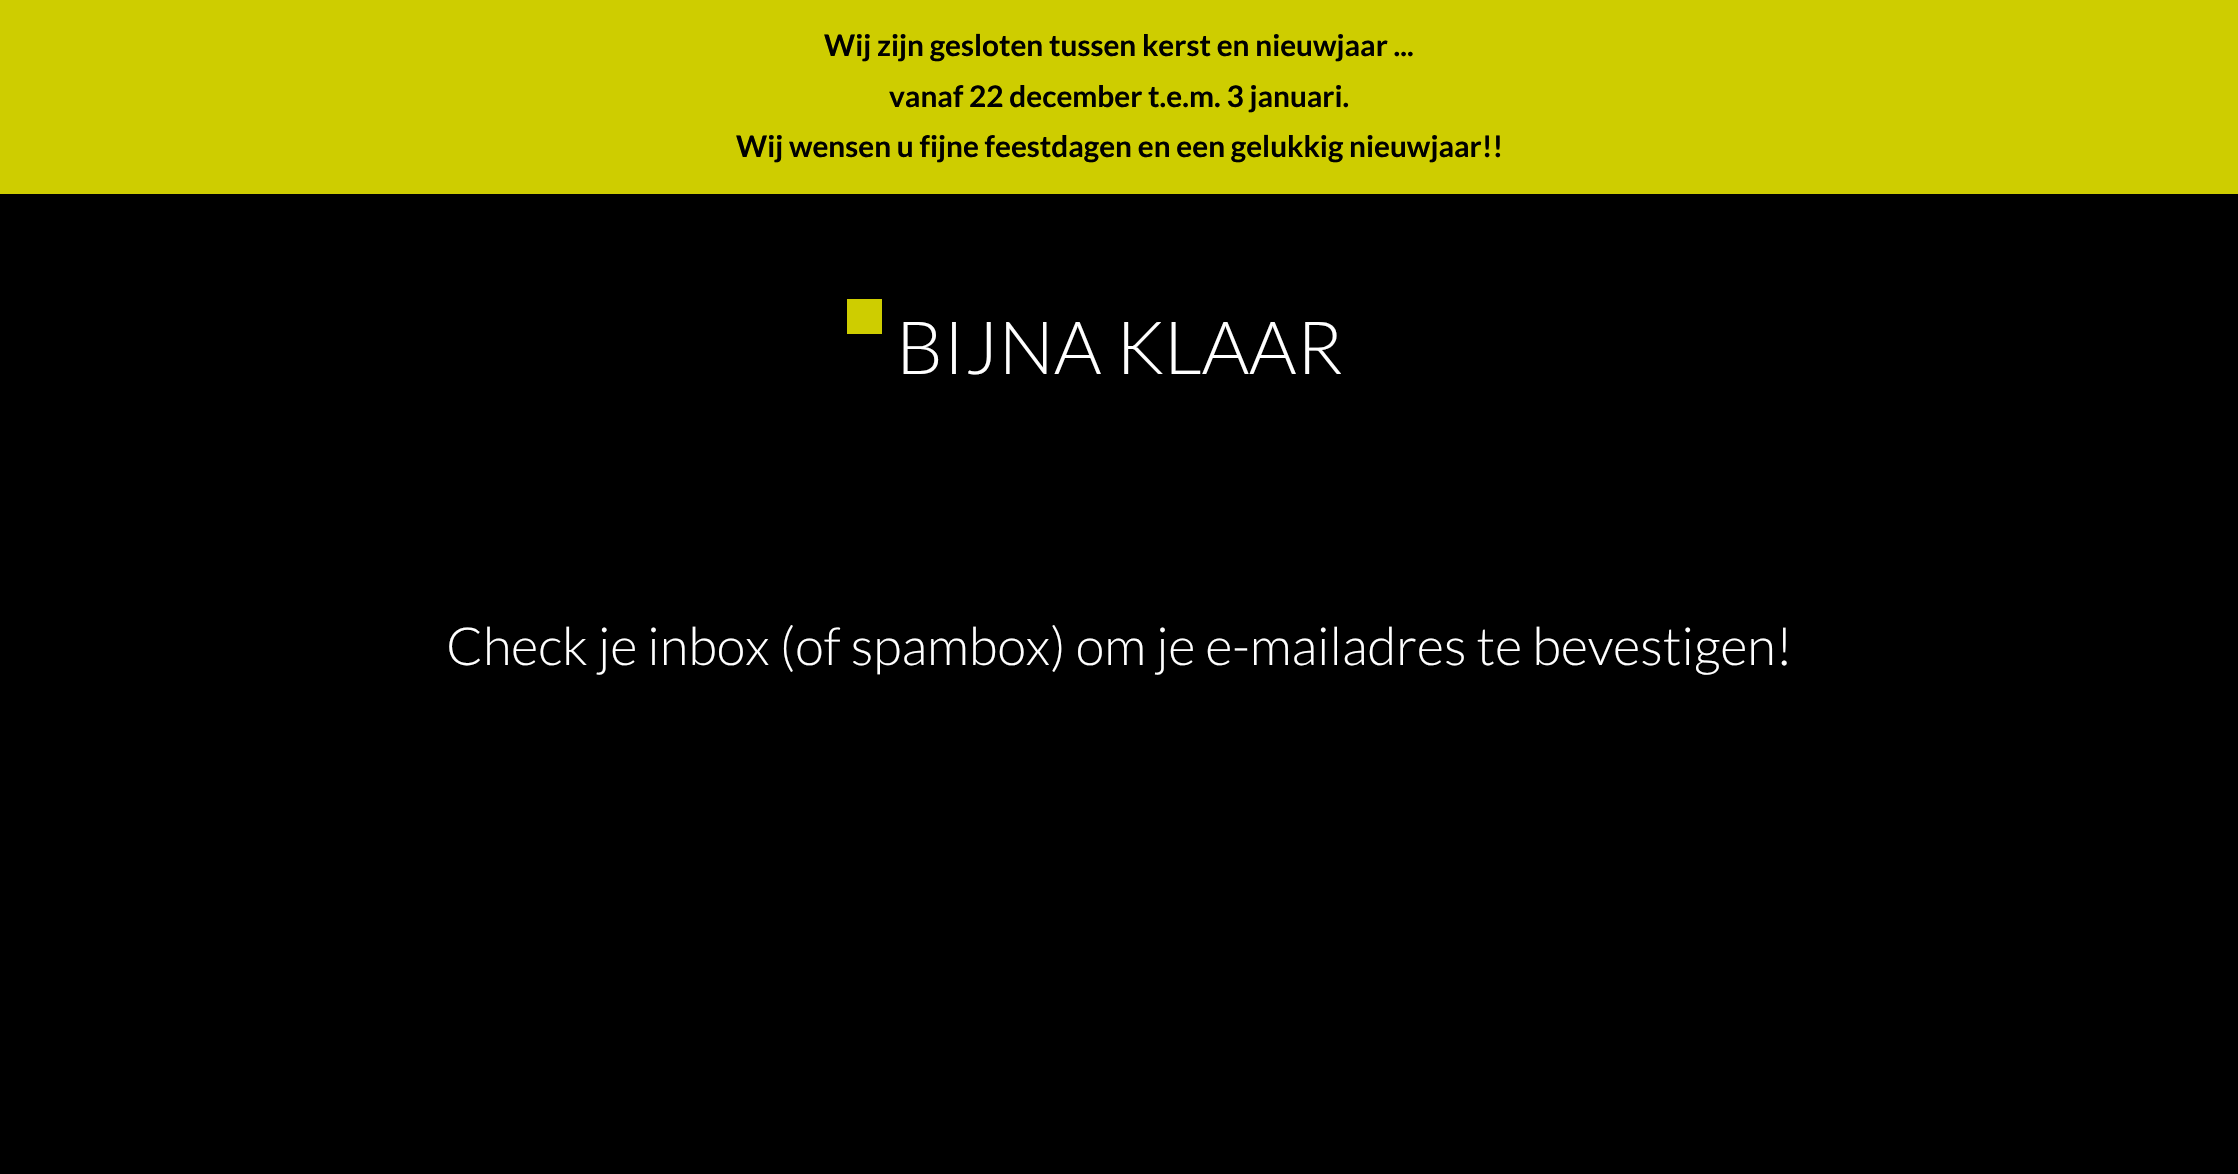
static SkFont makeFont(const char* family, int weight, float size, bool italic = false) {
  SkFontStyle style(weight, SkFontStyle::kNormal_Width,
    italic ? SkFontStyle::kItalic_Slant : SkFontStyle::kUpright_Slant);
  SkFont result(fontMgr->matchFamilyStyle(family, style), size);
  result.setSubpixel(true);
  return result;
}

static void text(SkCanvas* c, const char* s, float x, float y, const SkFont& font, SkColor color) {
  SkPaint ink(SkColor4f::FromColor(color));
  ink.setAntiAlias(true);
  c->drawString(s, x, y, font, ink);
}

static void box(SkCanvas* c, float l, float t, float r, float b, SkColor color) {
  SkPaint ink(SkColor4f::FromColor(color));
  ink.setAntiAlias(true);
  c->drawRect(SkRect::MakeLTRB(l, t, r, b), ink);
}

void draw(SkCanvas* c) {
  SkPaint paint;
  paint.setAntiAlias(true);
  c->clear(0xff000000);
  box(c, 0, 0, 2238, 194, 0xffcecd00);
  SkFont face1 = makeFont("Lato", 700, 29.75f);
  text(c, "Wij zijn gesloten tussen kerst en nieuwjaar ...", 824, 56, face1, 0xff000000);
  text(c, "vanaf 22 december t.e.m. 3 januari.", 889, 107, face1, 0xff000000);
  text(c, "Wij wensen u fijne feestdagen en een gelukkig nieuwjaar!!", 736, 157, face1, 0xff000000);
  box(c, 847, 299, 882, 334, 0xffcecd00);
  SkFont face2 = makeFont("Lato", 300, 73.5f);
  text(c, "BIJNA KLAAR", 896, 374, face2, 0xffffffff);
  SkFont face3 = makeFont("Lato", 300, 52.5f);
  text(c, "Check je inbox (of spambox) om je e-mailadres te bevestigen!", 446, 665, face3, 0xffffffff);
}
